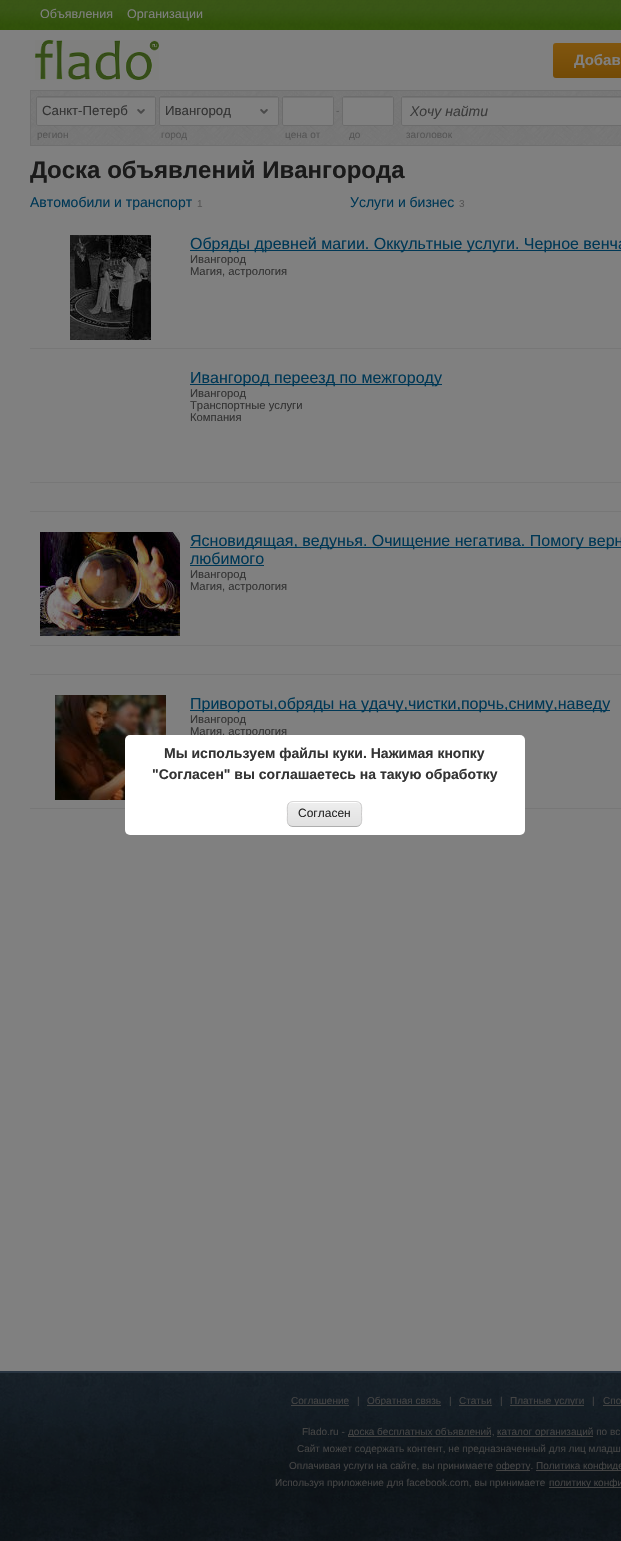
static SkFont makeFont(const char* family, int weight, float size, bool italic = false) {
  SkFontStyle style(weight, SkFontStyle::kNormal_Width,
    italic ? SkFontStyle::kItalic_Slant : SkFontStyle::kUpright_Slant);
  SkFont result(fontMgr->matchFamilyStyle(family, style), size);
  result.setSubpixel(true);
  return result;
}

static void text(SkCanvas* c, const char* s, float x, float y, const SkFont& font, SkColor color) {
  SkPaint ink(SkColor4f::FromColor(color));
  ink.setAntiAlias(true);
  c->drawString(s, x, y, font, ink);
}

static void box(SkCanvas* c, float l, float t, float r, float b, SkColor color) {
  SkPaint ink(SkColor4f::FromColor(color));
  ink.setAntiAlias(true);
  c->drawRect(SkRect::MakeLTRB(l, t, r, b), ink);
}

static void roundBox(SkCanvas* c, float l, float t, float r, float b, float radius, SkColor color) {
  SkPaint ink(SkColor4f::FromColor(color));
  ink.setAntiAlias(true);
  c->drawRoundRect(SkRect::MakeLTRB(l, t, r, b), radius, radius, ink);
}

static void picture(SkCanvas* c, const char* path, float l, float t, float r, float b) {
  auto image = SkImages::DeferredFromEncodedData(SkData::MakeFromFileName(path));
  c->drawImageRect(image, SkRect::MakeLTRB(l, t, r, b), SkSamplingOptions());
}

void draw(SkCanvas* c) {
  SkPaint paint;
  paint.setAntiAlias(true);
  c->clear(0xff808080);
  picture(c, "img_01.png", 0, 0, 621, 30);
  SkFont face1 = makeFont("Liberation Sans", 400, 12.5f);
  text(c, "Объявления", 40, 18, face1, 0xff808080);
  text(c, "Организации", 127, 18, face1, 0xff808080);
  picture(c, "img_02.png", 35, 40, 159, 80);
  {
    const SkColor colors[] = {0xff80560f, 0xff724a07};
    const float stops[] = {0, 1};
    const SkPoint ends[] = {{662, 43}, {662, 78}};
    paint.setShader(SkGradientShader::MakeLinear(ends, colors, stops, 2, SkTileMode::kClamp));
    paint.setAlpha(255);
  }
  c->drawRoundRect(SkRect::MakeLTRB(553, 43, 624, 78), 3, 3, paint);
  SkFont face2 = makeFont("Liberation Sans", 700, 15);
  text(c, "Добав", 574, 65, face2, 0xff808080);
  picture(c, "img_03.png", 31, 91, 621, 145);
  paint.setStyle(SkPaint::kStroke_Style);
  paint.setStrokeWidth(1);
  paint.setShader(nullptr);
  paint.setColor(0xff6f6f6f);
  c->drawRect(SkRect::MakeLTRB(30.5f, 90.5f, 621.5f, 145.5f), paint);
  roundBox(c, 36, 96, 156, 126, 2, 0xff808080);
  paint.setStyle(SkPaint::kFill_Style);
  paint.setColor(0xff747474);
  c->drawPath(SkPathBuilder().moveTo(38, 98).lineTo(155, 98).lineTo(155, 99).cubicTo(155, 98, 155, 97, 154, 97).lineTo(38, 97).cubicTo(37, 97, 37, 98, 37, 99).cubicTo(37, 98, 37, 98, 38, 98).close().detach(), paint);
  paint.setStyle(SkPaint::kStroke_Style);
  paint.setColor(0xff6c6c6c);
  c->drawRoundRect(SkRect::MakeLTRB(36.5f, 96.5f, 155.5f, 125.5f), 1.5f, 1.5f, paint);
  SkFont face3 = makeFont("Liberation Sans", 400, 13.25f);
  text(c, "Санкт-Петерб", 42, 115, face3, 0xff333333);
  picture(c, "img_04.png", 137, 109, 145, 114);
  roundBox(c, 159, 96, 279, 126, 2, 0xff808080);
  paint.setStyle(SkPaint::kFill_Style);
  paint.setColor(0xff747474);
  c->drawPath(SkPathBuilder().moveTo(161, 98).lineTo(278, 98).lineTo(278, 99).cubicTo(278, 98, 278, 97, 277, 97).lineTo(161, 97).cubicTo(160, 97, 160, 98, 160, 99).cubicTo(160, 98, 160, 98, 161, 98).close().detach(), paint);
  paint.setStyle(SkPaint::kStroke_Style);
  paint.setColor(0xff6c6c6c);
  c->drawRoundRect(SkRect::MakeLTRB(159.5f, 96.5f, 278.5f, 125.5f), 1.5f, 1.5f, paint);
  text(c, "Ивангород", 165, 115, face3, 0xff333333);
  picture(c, "img_04.png", 260, 109, 268, 114);
  roundBox(c, 282, 96, 334, 126, 2, 0xff808080);
  paint.setStyle(SkPaint::kFill_Style);
  paint.setColor(0xff747474);
  c->drawPath(SkPathBuilder().moveTo(284, 98).lineTo(332, 98).cubicTo(333, 98, 333, 98, 333, 99).cubicTo(333, 95, 328, 97, 324, 97).lineTo(292, 97).cubicTo(288, 97, 283, 95, 283, 99).cubicTo(283, 98, 283, 98, 284, 98).close().detach(), paint);
  paint.setStyle(SkPaint::kStroke_Style);
  paint.setColor(0xff6c6c6c);
  c->drawRoundRect(SkRect::MakeLTRB(282.5f, 96.5f, 333.5f, 125.5f), 1.5f, 1.5f, paint);
  SkFont face4 = makeFont("Liberation Sans", 400, 10);
  text(c, "-", 336, 114, face4, 0xff555555);
  roundBox(c, 342, 96, 394, 126, 2, 0xff808080);
  paint.setStyle(SkPaint::kFill_Style);
  paint.setColor(0xff747474);
  c->drawPath(SkPathBuilder().moveTo(344, 98).lineTo(392, 98).cubicTo(393, 98, 393, 98, 393, 99).cubicTo(393, 95, 388, 97, 384, 97).lineTo(352, 97).cubicTo(348, 97, 343, 95, 343, 99).cubicTo(343, 98, 343, 98, 344, 98).close().detach(), paint);
  paint.setStyle(SkPaint::kStroke_Style);
  paint.setColor(0xff6c6c6c);
  c->drawRoundRect(SkRect::MakeLTRB(342.5f, 96.5f, 393.5f, 125.5f), 1.5f, 1.5f, paint);
  roundBox(c, 401, 96, 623, 126, 2, 0xff808080);
  paint.setStyle(SkPaint::kFill_Style);
  paint.setColor(0xff747474);
  c->drawPath(SkPathBuilder().moveTo(403, 98).lineTo(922, 98).cubicTo(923, 98, 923, 98, 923, 99).cubicTo(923, 98, 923, 97, 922, 97).lineTo(403, 97).lineTo(402, 98).lineTo(402, 99).cubicTo(402, 98, 402, 98, 403, 98).close().detach(), paint);
  paint.setStyle(SkPaint::kStroke_Style);
  paint.setColor(0xff6c6c6c);
  c->drawRoundRect(SkRect::MakeLTRB(401.5f, 96.5f, 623.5f, 125.5f), 1.5f, 1.5f, paint);
  SkFont face5 = makeFont("Liberation Sans", 400, 14, true);
  text(c, "Хочу найти", 410, 116, face5, 0xff3b3b3b);
  text(c, "регион", 37, 138, face4, 0xff555555);
  text(c, "город", 161, 138, face4, 0xff555555);
  text(c, "цена от", 285, 138, face4, 0xff555555);
  text(c, "до", 349, 138, face4, 0xff555555);
  text(c, "заголовок", 406, 138, face4, 0xff555555);
  SkFont face6 = makeFont("Liberation Sans", 700, 24);
  text(c, "Доска объявлений Ивангорода", 30, 178, face6, 0xff1a1a1a);
  SkFont face7 = makeFont("Liberation Sans", 400, 14);
  text(c, "Автомобили и транспорт", 30, 207, face7, 0xff003856);
  text(c, "1", 197, 207, face4, 0xff555555);
  text(c, "Услуги и бизнес", 350, 207, face7, 0xff003856);
  text(c, "3", 459, 207, face4, 0xff555555);
  box(c, 30, 348, 621, 349, 0xff777777);
  picture(c, "img_05.png", 70, 235, 151, 340);
  box(c, 190, 250, 621, 251, 0xff003856);
  SkFont face8 = makeFont("Liberation Sans", 400, 16);
  text(c, "Обряды древней магии. Оккультные услуги. Черное венча", 190, 249, face8, 0xff003856);
  SkFont face9 = makeFont("Liberation Sans", 400, 11.25f);
  text(c, "Ивангород", 190, 263, face9, 0xff333333);
  text(c, "Магия, астрология", 190, 275, face9, 0xff333333);
  box(c, 30, 482, 621, 483, 0xff777777);
  box(c, 190, 384, 442, 385, 0xff003856);
  text(c, "Ивангород переезд по межгороду", 190, 383, face8, 0xff003856);
  text(c, "Ивангород", 190, 397, face9, 0xff333333);
  text(c, "Транспортные услуги", 190, 409, face9, 0xff333333);
  text(c, "Компания", 190, 421, face9, 0xff333333);
  box(c, 30, 511, 621, 512, 0xff777777);
  box(c, 30, 645, 621, 646, 0xff777777);
  picture(c, "img_06.png", 40, 532, 180, 636);
  box(c, 190, 547, 621, 548, 0xff003856);
  text(c, "Ясновидящая, ведунья. Очищение негатива. Помогу верн", 190, 546, face8, 0xff003856);
  text(c, "любимого", 190, 564, face8, 0xff003856);
  box(c, 190, 565, 264, 566, 0xff003856);
  text(c, "Ивангород", 190, 578, face9, 0xff333333);
  text(c, "Магия, астрология", 190, 590, face9, 0xff333333);
  box(c, 30, 674, 621, 675, 0xff777777);
  box(c, 30, 808, 621, 809, 0xff777777);
  picture(c, "img_07.png", 55, 695, 166, 800);
  box(c, 190, 710, 610, 711, 0xff003856);
  text(c, "Привороты,обряды на удачу,чистки,порчь,сниму,наведу", 190, 709, face8, 0xff003856);
  text(c, "Ивангород", 190, 723, face9, 0xff333333);
  text(c, "Магия, астрология", 190, 735, face9, 0xff333333);
  roundBox(c, 125, 735, 525, 835, 5, 0xffffffff);
  SkFont face10 = makeFont("Liberation Sans", 700, 14);
  text(c, "Мы используем файлы куки. Нажимая кнопку", 164, 758, face10, 0xff333333);
  text(c, "\"Согласен\" вы соглашаетесь на такую обработку", 152, 779, face10, 0xff333333);
  c->save();
  c->clipPath(SkPathBuilder().moveTo(293, 801).lineTo(356, 801).cubicTo(359.5f, 801, 362, 803.5f, 362, 807).lineTo(362, 821).cubicTo(362, 824.5f, 359.5f, 827, 356, 827).lineTo(293, 827).cubicTo(289.5f, 827, 287, 824.5f, 287, 821).lineTo(287, 807).cubicTo(287, 803.5f, 289.5f, 801, 293, 801).close().detach(), true);
  paint.setStyle(SkPaint::kFill_Style);
  {
    const SkColor colors[] = {0xffeeeeee, 0xffe1e1e1};
    const float stops[] = {0, 1};
    const SkPoint ends[] = {{325, 802}, {325, 826}};
    paint.setShader(SkGradientShader::MakeLinear(ends, colors, stops, 2, SkTileMode::kClamp));
    paint.setAlpha(255);
  }
  c->drawRect(SkRect::MakeLTRB(287, 802, 362, 826), paint);
  c->restore();
  paint.setShader(nullptr);
  paint.setColor(0xffffffff);
  c->drawPath(SkPathBuilder().moveTo(293, 803).lineTo(356, 803).cubicTo(359, 803, 361, 805, 361, 808).cubicTo(361, 800, 351, 802, 346, 802).lineTo(304, 802).cubicTo(298, 802, 288, 800, 288, 808).cubicTo(288, 805, 290, 803, 293, 803).close().detach(), paint);
  paint.setStyle(SkPaint::kStroke_Style);
  paint.setColor(0xffd9d8d8);
  c->drawPath(SkPathBuilder().moveTo(289, 803).cubicTo(290, 802, 291.5f, 801.5f, 293, 801.5f).lineTo(356, 801.5f).cubicTo(357.5f, 801.5f, 359, 802, 360, 803).detach(), paint);
  paint.setColor(0xffcccbcb);
  c->drawPath(SkPathBuilder().moveTo(360, 803).cubicTo(362.5f, 805.5f, 361.5f, 810.5f, 361.5f, 814).cubicTo(361.5f, 817.5f, 362.5f, 822.5f, 360, 825).detach(), paint);
  paint.setColor(0xffaeaeae);
  c->drawPath(SkPathBuilder().moveTo(360, 825).cubicTo(359, 826, 357.5f, 826.5f, 356, 826.5f).lineTo(293, 826.5f).cubicTo(291.5f, 826.5f, 290, 826, 289, 825).detach(), paint);
  paint.setColor(0xffcccbcb);
  c->drawPath(SkPathBuilder().moveTo(289, 825).cubicTo(286.5f, 822.5f, 287.5f, 817.5f, 287.5f, 814).cubicTo(287.5f, 810.5f, 286.5f, 805.5f, 289, 803).detach(), paint);
  SkFont face11 = makeFont("Liberation Sans", 400, 12);
  text(c, "Согласен", 298, 817, face11, 0xff282828);
  picture(c, "img_08.png", 0, 1373, 621, 1541);
  box(c, 0, 1371, 621, 1373, 0xff273340);
  text(c, "Соглашение", 291, 1404, face4, 0xff444444);
  box(c, 291, 1405, 349, 1406, 0xff444444);
  text(c, "|", 357, 1404, face4, 0xff444444);
  box(c, 367, 1405, 441, 1406, 0xff444444);
  text(c, "Обратная связь", 367, 1404, face4, 0xff444444);
  text(c, "|", 449, 1404, face4, 0xff444444);
  text(c, "Статьи", 459, 1404, face4, 0xff444444);
  box(c, 459, 1405, 492, 1406, 0xff444444);
  text(c, "|", 500, 1404, face4, 0xff444444);
  box(c, 510, 1405, 584, 1406, 0xff444444);
  text(c, "Платные услуги", 510, 1404, face4, 0xff444444);
  text(c, "|", 592, 1404, face4, 0xff444444);
  text(c, "Спо", 603, 1404, face4, 0xff444444);
  box(c, 603, 1405, 621, 1406, 0xff444444);
  text(c, "Flado.ru -", 302, 1435, face4, 0xff444444);
  box(c, 348, 1436, 491, 1437, 0xff444444);
  text(c, "доска бесплатных объявлений,", 348, 1435, face4, 0xff444444);
  box(c, 497, 1436, 593, 1437, 0xff444444);
  text(c, "каталог организаций по вс", 497, 1435, face4, 0xff444444);
  text(c, "Сайт может содержать контент, не предназначенный для лиц младш", 297, 1452, face4, 0xff444444);
  text(c, "Оплачивая услуги на сайте, вы принимаете", 289, 1469, face4, 0xff444444);
  box(c, 496, 1470, 530, 1471, 0xff444444);
  text(c, "оферту.", 496, 1469, face4, 0xff444444);
  box(c, 536, 1470, 621, 1471, 0xff444444);
  text(c, "Политика конфиде", 536, 1469, face4, 0xff444444);
  text(c, "Используя приложение для facebook.com, вы принимаете", 275, 1486, face4, 0xff444444);
  box(c, 549, 1487, 621, 1488, 0xff444444);
  text(c, "политику конфи", 549, 1486, face4, 0xff444444);
}
